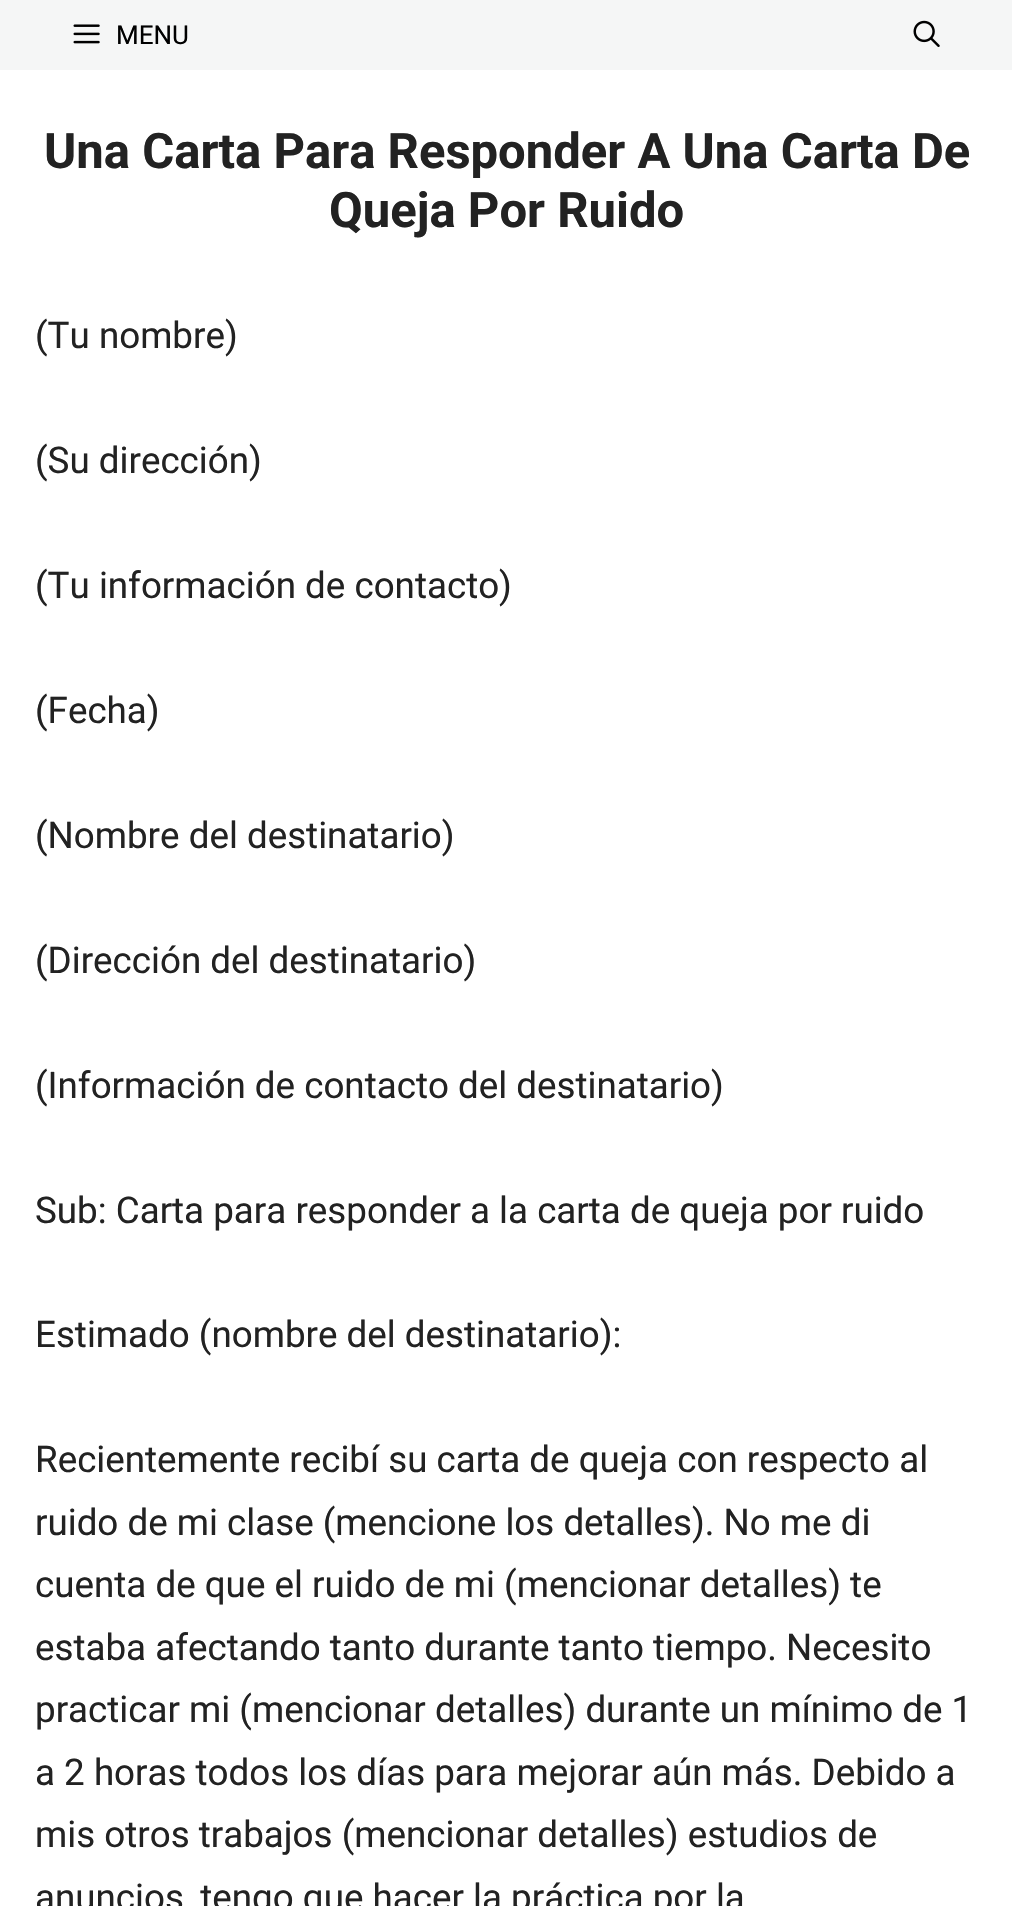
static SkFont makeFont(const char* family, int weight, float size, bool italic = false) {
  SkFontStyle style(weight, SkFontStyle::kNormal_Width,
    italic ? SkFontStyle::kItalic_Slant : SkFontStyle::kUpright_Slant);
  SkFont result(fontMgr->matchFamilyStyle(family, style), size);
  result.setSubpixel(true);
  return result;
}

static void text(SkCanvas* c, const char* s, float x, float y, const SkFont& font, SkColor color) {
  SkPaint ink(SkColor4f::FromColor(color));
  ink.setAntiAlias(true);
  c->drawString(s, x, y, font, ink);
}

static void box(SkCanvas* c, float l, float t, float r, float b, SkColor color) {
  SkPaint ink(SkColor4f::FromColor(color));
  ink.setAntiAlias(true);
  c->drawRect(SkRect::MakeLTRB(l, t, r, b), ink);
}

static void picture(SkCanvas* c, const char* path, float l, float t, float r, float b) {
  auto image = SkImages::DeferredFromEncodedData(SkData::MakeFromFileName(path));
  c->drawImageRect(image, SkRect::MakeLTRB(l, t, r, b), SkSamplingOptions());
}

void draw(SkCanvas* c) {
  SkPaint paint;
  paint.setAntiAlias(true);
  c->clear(0xffffffff);
  box(c, 0, 0, 1012, 70, 0xfff5f6f6);
  picture(c, "img_01.png", 73, 24, 100, 44);
  SkFont face1 = makeFont("Roboto", 400, 26);
  text(c, "MENU", 116, 44, face1, 0xff000000);
  picture(c, "img_02.png", 913, 20, 940, 47);
  SkFont face2 = makeFont("Roboto", 700, 49);
  text(c, "Una Carta Para Responder A Una Carta De", 44, 168, face2, 0xff222222);
  text(c, "Queja Por Ruido", 329, 227, face2, 0xff222222);
  SkFont face3 = makeFont("Roboto", 400, 36.75f);
  text(c, "(Tu nombre)", 35, 348, face3, 0xff222222);
  text(c, "(Su dirección)", 35, 473, face3, 0xff222222);
  text(c, "(Tu información de contacto)", 35, 598, face3, 0xff222222);
  text(c, "(Fecha)", 35, 723, face3, 0xff222222);
  text(c, "(Nombre del destinatario)", 35, 848, face3, 0xff222222);
  text(c, "(Dirección del destinatario)", 35, 973, face3, 0xff222222);
  text(c, "(Información de contacto del destinatario)", 35, 1098, face3, 0xff222222);
  text(c, "Sub: Carta para responder a la carta de queja por ruido", 35, 1223, face3, 0xff222222);
  text(c, "Estimado (nombre del destinatario):", 35, 1347, face3, 0xff222222);
  text(c, "Recientemente recibí su carta de queja con respecto al", 35, 1472, face3, 0xff222222);
  text(c, "ruido de mi clase (mencione los detalles). No me di", 35, 1535, face3, 0xff222222);
  text(c, "cuenta de que el ruido de mi (mencionar detalles) te", 35, 1597, face3, 0xff222222);
  text(c, "estaba afectando tanto durante tanto tiempo. Necesito", 35, 1660, face3, 0xff222222);
  text(c, "practicar mi (mencionar detalles) durante un mínimo de 1", 35, 1722, face3, 0xff222222);
  text(c, "a 2 horas todos los días para mejorar aún más. Debido a", 35, 1785, face3, 0xff222222);
  text(c, "mis otros trabajos (mencionar detalles) estudios de", 35, 1847, face3, 0xff222222);
  text(c, "anuncios, tengo que hacer la práctica por la", 35, 1910, face3, 0xff222222);
}
